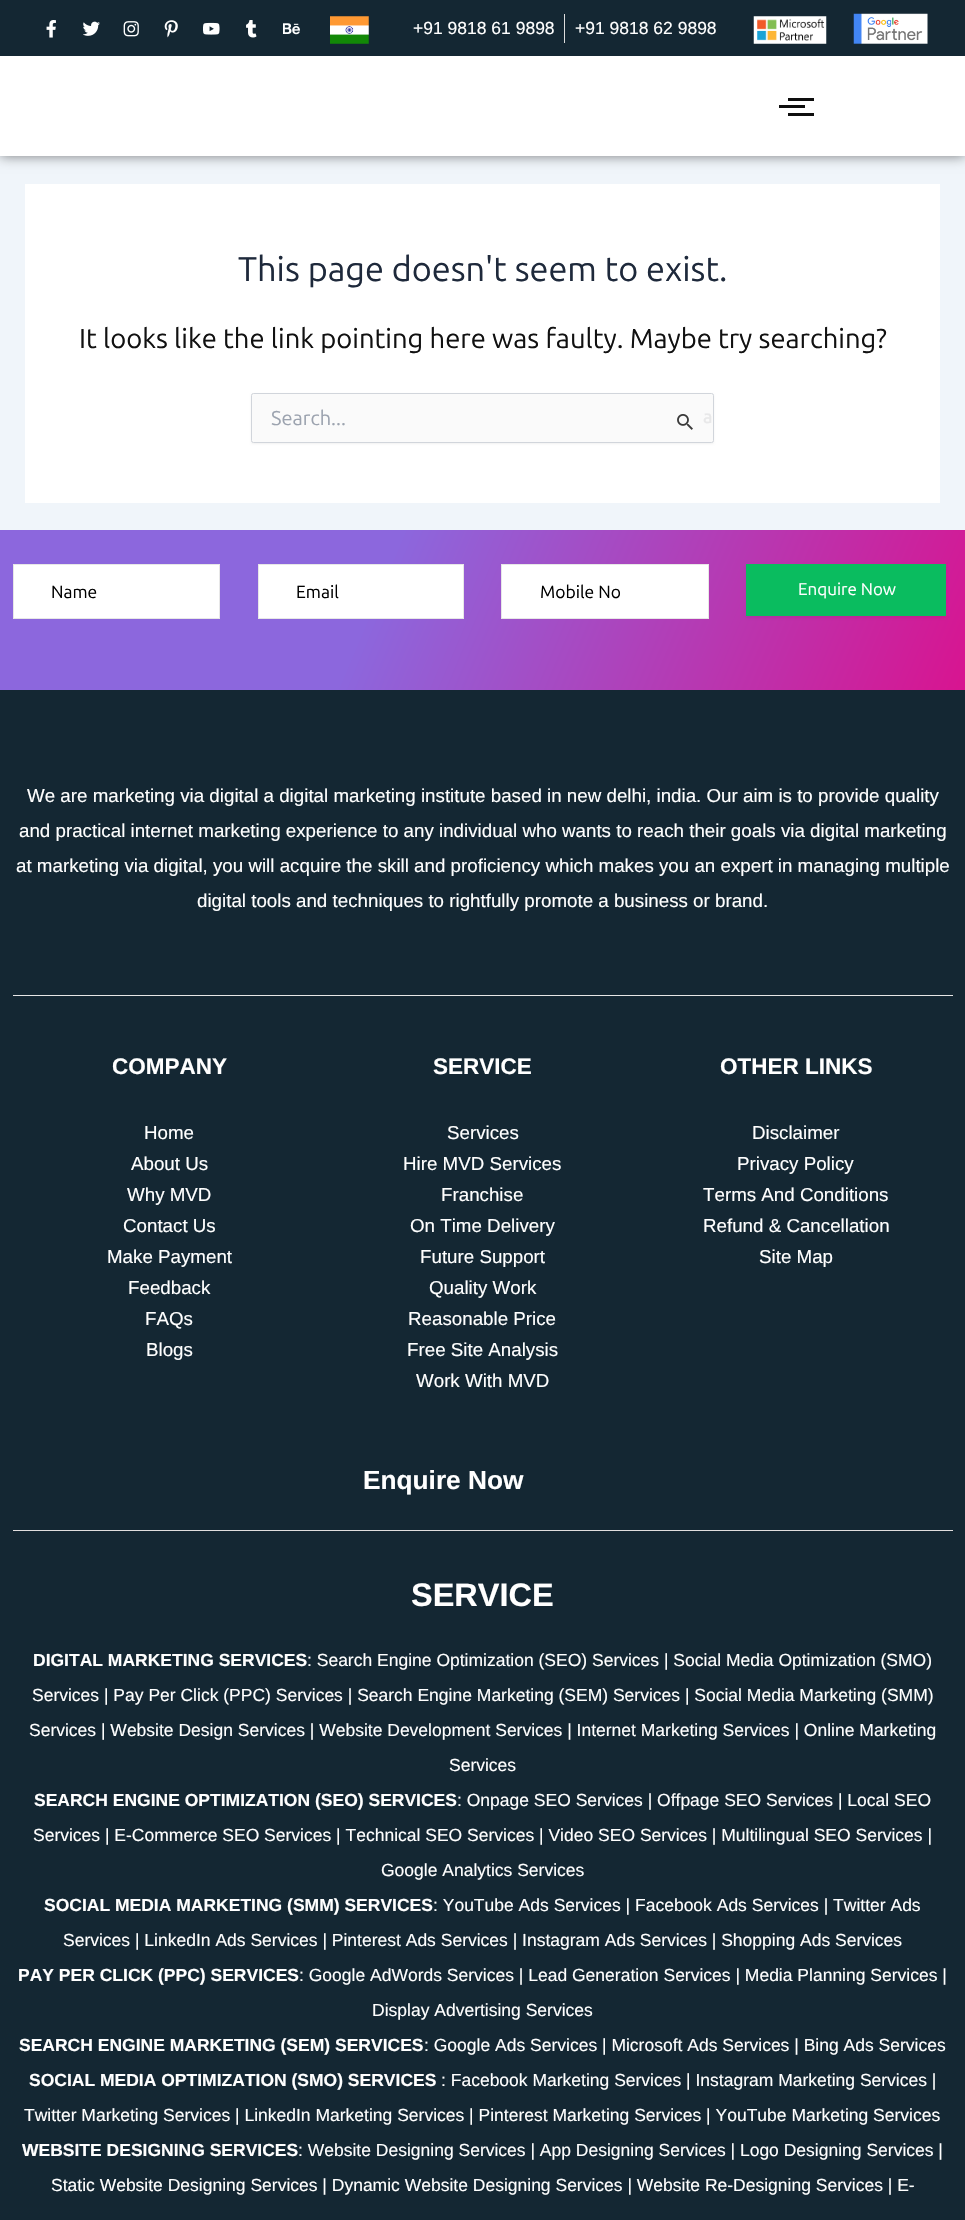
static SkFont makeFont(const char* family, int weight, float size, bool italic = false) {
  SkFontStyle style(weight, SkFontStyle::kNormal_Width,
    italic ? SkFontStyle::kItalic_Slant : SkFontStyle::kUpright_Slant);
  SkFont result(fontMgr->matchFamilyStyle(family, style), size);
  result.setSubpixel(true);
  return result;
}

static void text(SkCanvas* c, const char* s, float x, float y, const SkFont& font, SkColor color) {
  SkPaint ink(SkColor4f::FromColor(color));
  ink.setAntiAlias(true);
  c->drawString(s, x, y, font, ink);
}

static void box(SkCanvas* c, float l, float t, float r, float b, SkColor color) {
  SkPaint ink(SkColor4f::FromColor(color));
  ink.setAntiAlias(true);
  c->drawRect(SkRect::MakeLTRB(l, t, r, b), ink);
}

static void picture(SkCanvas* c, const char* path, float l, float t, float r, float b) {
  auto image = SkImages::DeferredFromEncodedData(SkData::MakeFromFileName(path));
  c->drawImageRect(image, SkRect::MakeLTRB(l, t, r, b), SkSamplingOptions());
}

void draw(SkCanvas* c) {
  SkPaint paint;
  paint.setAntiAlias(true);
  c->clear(0xfff0f5fa);
  paint.setColor(0x80000000);
  paint.setMaskFilter(SkMaskFilter::MakeBlur(kNormal_SkBlurStyle, 6));
  c->drawRect(SkRect::MakeLTRB(0, 56, 965, 156), paint);
  paint.setMaskFilter(nullptr);
  box(c, 0, 0, 965, 56, 0xff142733);
  picture(c, "img_01.png", 46, 20, 56, 38);
  picture(c, "img_02.png", 83, 21, 100, 36);
  picture(c, "img_03.png", 123, 21, 139, 37);
  picture(c, "img_04.png", 164, 20, 178, 38);
  picture(c, "img_05.png", 203, 22, 220, 35);
  picture(c, "img_06.png", 246, 20, 257, 38);
  picture(c, "img_07.png", 283, 23, 300, 35);
  picture(c, "img_08.png", 330, 16, 369, 44);
  SkFont face1 = makeFont("Liberation Sans", 400, 17.5f);
  text(c, "+91 9818 61 9898", 413, 34, face1, 0xffffffff);
  box(c, 564, 14, 565, 43, 0xffdddddd);
  text(c, "+91 9818 62 9898", 575, 34, face1, 0xffffffff);
  picture(c, "img_09.png", 753, 16, 827, 44);
  picture(c, "img_10.png", 853, 13, 928, 44);
  box(c, 0, 56, 965, 156, 0xffffffff);
  box(c, 788, 98, 814, 101, 0xff0e0e0e);
  box(c, 779, 105, 805, 108, 0xff0e0e0e);
  box(c, 788, 113, 814, 116, 0xff0e0e0e);
  box(c, 25, 184, 940, 503, 0xffffffff);
  SkFont face2 = makeFont("Ubuntu", 400, 34.25f);
  text(c, "This page doesn't seem to exist.", 238, 281, face2, 0xff1e293b);
  SkFont face3 = makeFont("Ubuntu", 400, 27.35f);
  text(c, "It looks like the link pointing here was faulty. Maybe try searching?", 79, 348, face3, 0xff111111);
  paint.setColor(0x0d000000);
  paint.setMaskFilter(SkMaskFilter::MakeBlur(kNormal_SkBlurStyle, 1));
  c->drawRoundRect(SkRect::MakeLTRB(251, 394, 714, 444), 2.5f, 2.5f, paint);
  paint.setMaskFilter(nullptr);
  paint.setColor(0xfffafafa);
  c->drawRoundRect(SkRect::MakeLTRB(251.5f, 393.5f, 713.5f, 442.5f), 2, 2, paint);
  paint.setStyle(SkPaint::kStroke_Style);
  paint.setStrokeWidth(1);
  paint.setColor(0xffd1d5db);
  c->drawRoundRect(SkRect::MakeLTRB(251.5f, 393.5f, 713.5f, 442.5f), 2, 2, paint);
  SkFont face4 = makeFont("Ubuntu", 400, 20);
  text(c, "Search...", 271, 425, face4, 0xff9ca3af);
  picture(c, "img_11.png", 677, 414, 693, 430);
  SkFont face5 = makeFont("Ubuntu", 500, 18);
  text(c, "a", 703, 423, face5, 0xffe8e8e9);
  paint.setStyle(SkPaint::kFill_Style);
  {
    const SkColor colors[] = {0xffd81490, 0xff8c67dd};
    const float stops[] = {0, 0.61f};
    const SkPoint ends[] = {{920, 796}, {45, 424}};
    paint.setShader(SkGradientShader::MakeLinear(ends, colors, stops, 2, SkTileMode::kClamp));
    paint.setAlpha(255);
  }
  c->drawRect(SkRect::MakeLTRB(0, 530, 965, 690), paint);
  paint.setShader(nullptr);
  paint.setColor(0xffffffff);
  c->drawRect(SkRect::MakeLTRB(13.5f, 564.5f, 219.5f, 618.5f), paint);
  paint.setStyle(SkPaint::kStroke_Style);
  paint.setColor(0xffe7e7e7);
  c->drawRect(SkRect::MakeLTRB(13.5f, 564.5f, 219.5f, 618.5f), paint);
  SkFont face6 = makeFont("Ubuntu", 400, 17.5f);
  text(c, "Name", 51, 598, face6, 0xff000000);
  paint.setStyle(SkPaint::kFill_Style);
  paint.setColor(0xffffffff);
  c->drawRect(SkRect::MakeLTRB(258.5f, 564.5f, 463.5f, 618.5f), paint);
  paint.setStyle(SkPaint::kStroke_Style);
  paint.setColor(0xffe7e7e7);
  c->drawRect(SkRect::MakeLTRB(258.5f, 564.5f, 463.5f, 618.5f), paint);
  text(c, "Email", 296, 598, face6, 0xff000000);
  paint.setStyle(SkPaint::kFill_Style);
  paint.setColor(0xffffffff);
  c->drawRect(SkRect::MakeLTRB(501.5f, 564.5f, 708.5f, 618.5f), paint);
  paint.setStyle(SkPaint::kStroke_Style);
  paint.setColor(0xffe7e7e7);
  c->drawRect(SkRect::MakeLTRB(501.5f, 564.5f, 708.5f, 618.5f), paint);
  text(c, "Mobile No", 540, 598, face6, 0xff000000);
  paint.setStyle(SkPaint::kFill_Style);
  paint.setColor(0x0d000000);
  paint.setMaskFilter(SkMaskFilter::MakeBlur(kNormal_SkBlurStyle, 1));
  c->drawRect(SkRect::MakeLTRB(746, 565, 946, 618), paint);
  paint.setMaskFilter(nullptr);
  box(c, 746, 564, 946, 616, 0xff0abc5f);
  SkFont face7 = makeFont("Ubuntu", 400, 17);
  text(c, "Enquire Now", 798, 595, face7, 0xffffffff);
  box(c, 0, 690, 965, 2220, 0xff142733);
  SkFont face8 = makeFont("Liberation Sans", 400, 18.75f);
  text(c, "We are marketing via digital a digital marketing institute based in new delhi, india. Our aim is to provide quality", 27, 802, face8, 0xffffffff);
  text(c, "and practical internet marketing experience to any individual who wants to reach their goals via digital marketing", 19, 837, face8, 0xffffffff);
  text(c, "at marketing via digital, you will acquire the skill and proficiency which makes you an expert in managing multiple", 16, 872, face8, 0xffffffff);
  text(c, "digital tools and techniques to rightfully promote a business or brand.", 197, 907, face8, 0xffffffff);
  box(c, 13, 995, 953, 996, 0xffe7e6e6);
  SkFont face9 = makeFont("Liberation Sans", 700, 22.5f);
  text(c, "COMPANY", 112, 1074, face9, 0xffffffff);
  text(c, "Home", 144, 1139, face8, 0xffffffff);
  text(c, "About Us", 131, 1170, face8, 0xffffffff);
  text(c, "Why MVD", 127, 1201, face8, 0xffffffff);
  text(c, "Contact Us", 123, 1232, face8, 0xffffffff);
  text(c, "Make Payment", 107, 1263, face8, 0xffffffff);
  text(c, "Feedback", 128, 1294, face8, 0xffffffff);
  text(c, "FAQs", 145, 1325, face8, 0xffffffff);
  text(c, "Blogs", 146, 1356, face8, 0xffffffff);
  text(c, "SERVICE", 433, 1074, face9, 0xffffffff);
  text(c, "Services", 447, 1139, face8, 0xffffffff);
  text(c, "Hire MVD Services", 403, 1170, face8, 0xffffffff);
  text(c, "Franchise", 441, 1201, face8, 0xffffffff);
  text(c, "On Time Delivery", 410, 1232, face8, 0xffffffff);
  text(c, "Future Support", 420, 1263, face8, 0xffffffff);
  text(c, "Quality Work", 429, 1294, face8, 0xffffffff);
  text(c, "Reasonable Price", 408, 1325, face8, 0xffffffff);
  text(c, "Free Site Analysis", 407, 1356, face8, 0xffffffff);
  text(c, "Work With MVD", 416, 1387, face8, 0xffffffff);
  text(c, "OTHER LINKS", 720, 1074, face9, 0xffffffff);
  text(c, "Disclaimer", 752, 1139, face8, 0xffffffff);
  text(c, "Privacy Policy", 737, 1170, face8, 0xffffffff);
  text(c, "Terms And Conditions", 703, 1201, face8, 0xffffffff);
  text(c, "Refund & Cancellation", 703, 1232, face8, 0xffffffff);
  text(c, "Site Map", 759, 1263, face8, 0xffffffff);
  SkFont face10 = makeFont("Liberation Sans", 700, 26.25f);
  text(c, "Enquire Now", 363, 1489, face10, 0xffffffff);
  box(c, 13, 1530, 953, 1531, 0xffe2dfdf);
  SkFont face11 = makeFont("Liberation Sans", 700, 32.5f);
  text(c, "SERVICE", 411, 1606, face11, 0xffffffff);
  SkFont face12 = makeFont("Liberation Sans", 700, 17.5f);
  text(c, "DIGITAL MARKETING SERVICES", 33, 1666, face12, 0xffffffff);
  text(c, ": Search Engine Optimization (SEO) Services | Social Media Optimization (SMO)", 307, 1666, face1, 0xffffffff);
  text(c, "Services | Pay Per Click (PPC) Services | Search Engine Marketing (SEM) Services | Social Media Marketing (SMM)", 32, 1701, face1, 0xffffffff);
  text(c, "Services | Website Design Services | Website Development Services | Internet Marketing Services | Online Marketing", 29, 1736, face1, 0xffffffff);
  text(c, "Services", 449, 1771, face1, 0xffffffff);
  text(c, "SEARCH ENGINE OPTIMIZATION (SEO) SERVICES", 34, 1806, face12, 0xffffffff);
  text(c, ": Onpage SEO Services | Offpage SEO Services | Local SEO", 457, 1806, face1, 0xffffffff);
  text(c, "Services | E-Commerce SEO Services | Technical SEO Services | Video SEO Services | Multilingual SEO Services |", 33, 1841, face1, 0xffffffff);
  text(c, "Google Analytics Services", 381, 1876, face1, 0xffffffff);
  text(c, "SOCIAL MEDIA MARKETING (SMM) SERVICES", 44, 1911, face12, 0xffffffff);
  text(c, ": YouTube Ads Services | Facebook Ads Services | Twitter Ads", 433, 1911, face1, 0xffffffff);
  text(c, "Services | LinkedIn Ads Services | Pinterest Ads Services | Instagram Ads Services | Shopping Ads Services", 63, 1946, face1, 0xffffffff);
  text(c, "PAY PER CLICK (PPC) SERVICES", 18, 1981, face12, 0xffffffff);
  text(c, ": Google AdWords Services | Lead Generation Services | Media Planning Services |", 299, 1981, face1, 0xffffffff);
  text(c, "Display Advertising Services", 372, 2016, face1, 0xffffffff);
  text(c, "SEARCH ENGINE MARKETING (SEM) SERVICES", 19, 2051, face12, 0xffffffff);
  text(c, ": Google Ads Services | Microsoft Ads Services | Bing Ads Services", 424, 2051, face1, 0xffffffff);
  text(c, "SOCIAL MEDIA OPTIMIZATION (SMO) SERVICES", 29, 2086, face12, 0xffffffff);
  text(c, ": Facebook Marketing Services | Instagram Marketing Services |", 441, 2086, face1, 0xffffffff);
  text(c, "Twitter Marketing Services | LinkedIn Marketing Services | Pinterest Marketing Services | YouTube Marketing Services", 24, 2121, face1, 0xffffffff);
  text(c, "WEBSITE DESIGNING SERVICES", 22, 2156, face12, 0xffffffff);
  text(c, ": Website Designing Services | App Designing Services | Logo Designing Services |", 298, 2156, face1, 0xffffffff);
  text(c, "Static Website Designing Services | Dynamic Website Designing Services | Website Re-Designing Services | E-", 51, 2191, face1, 0xffffffff);
}
